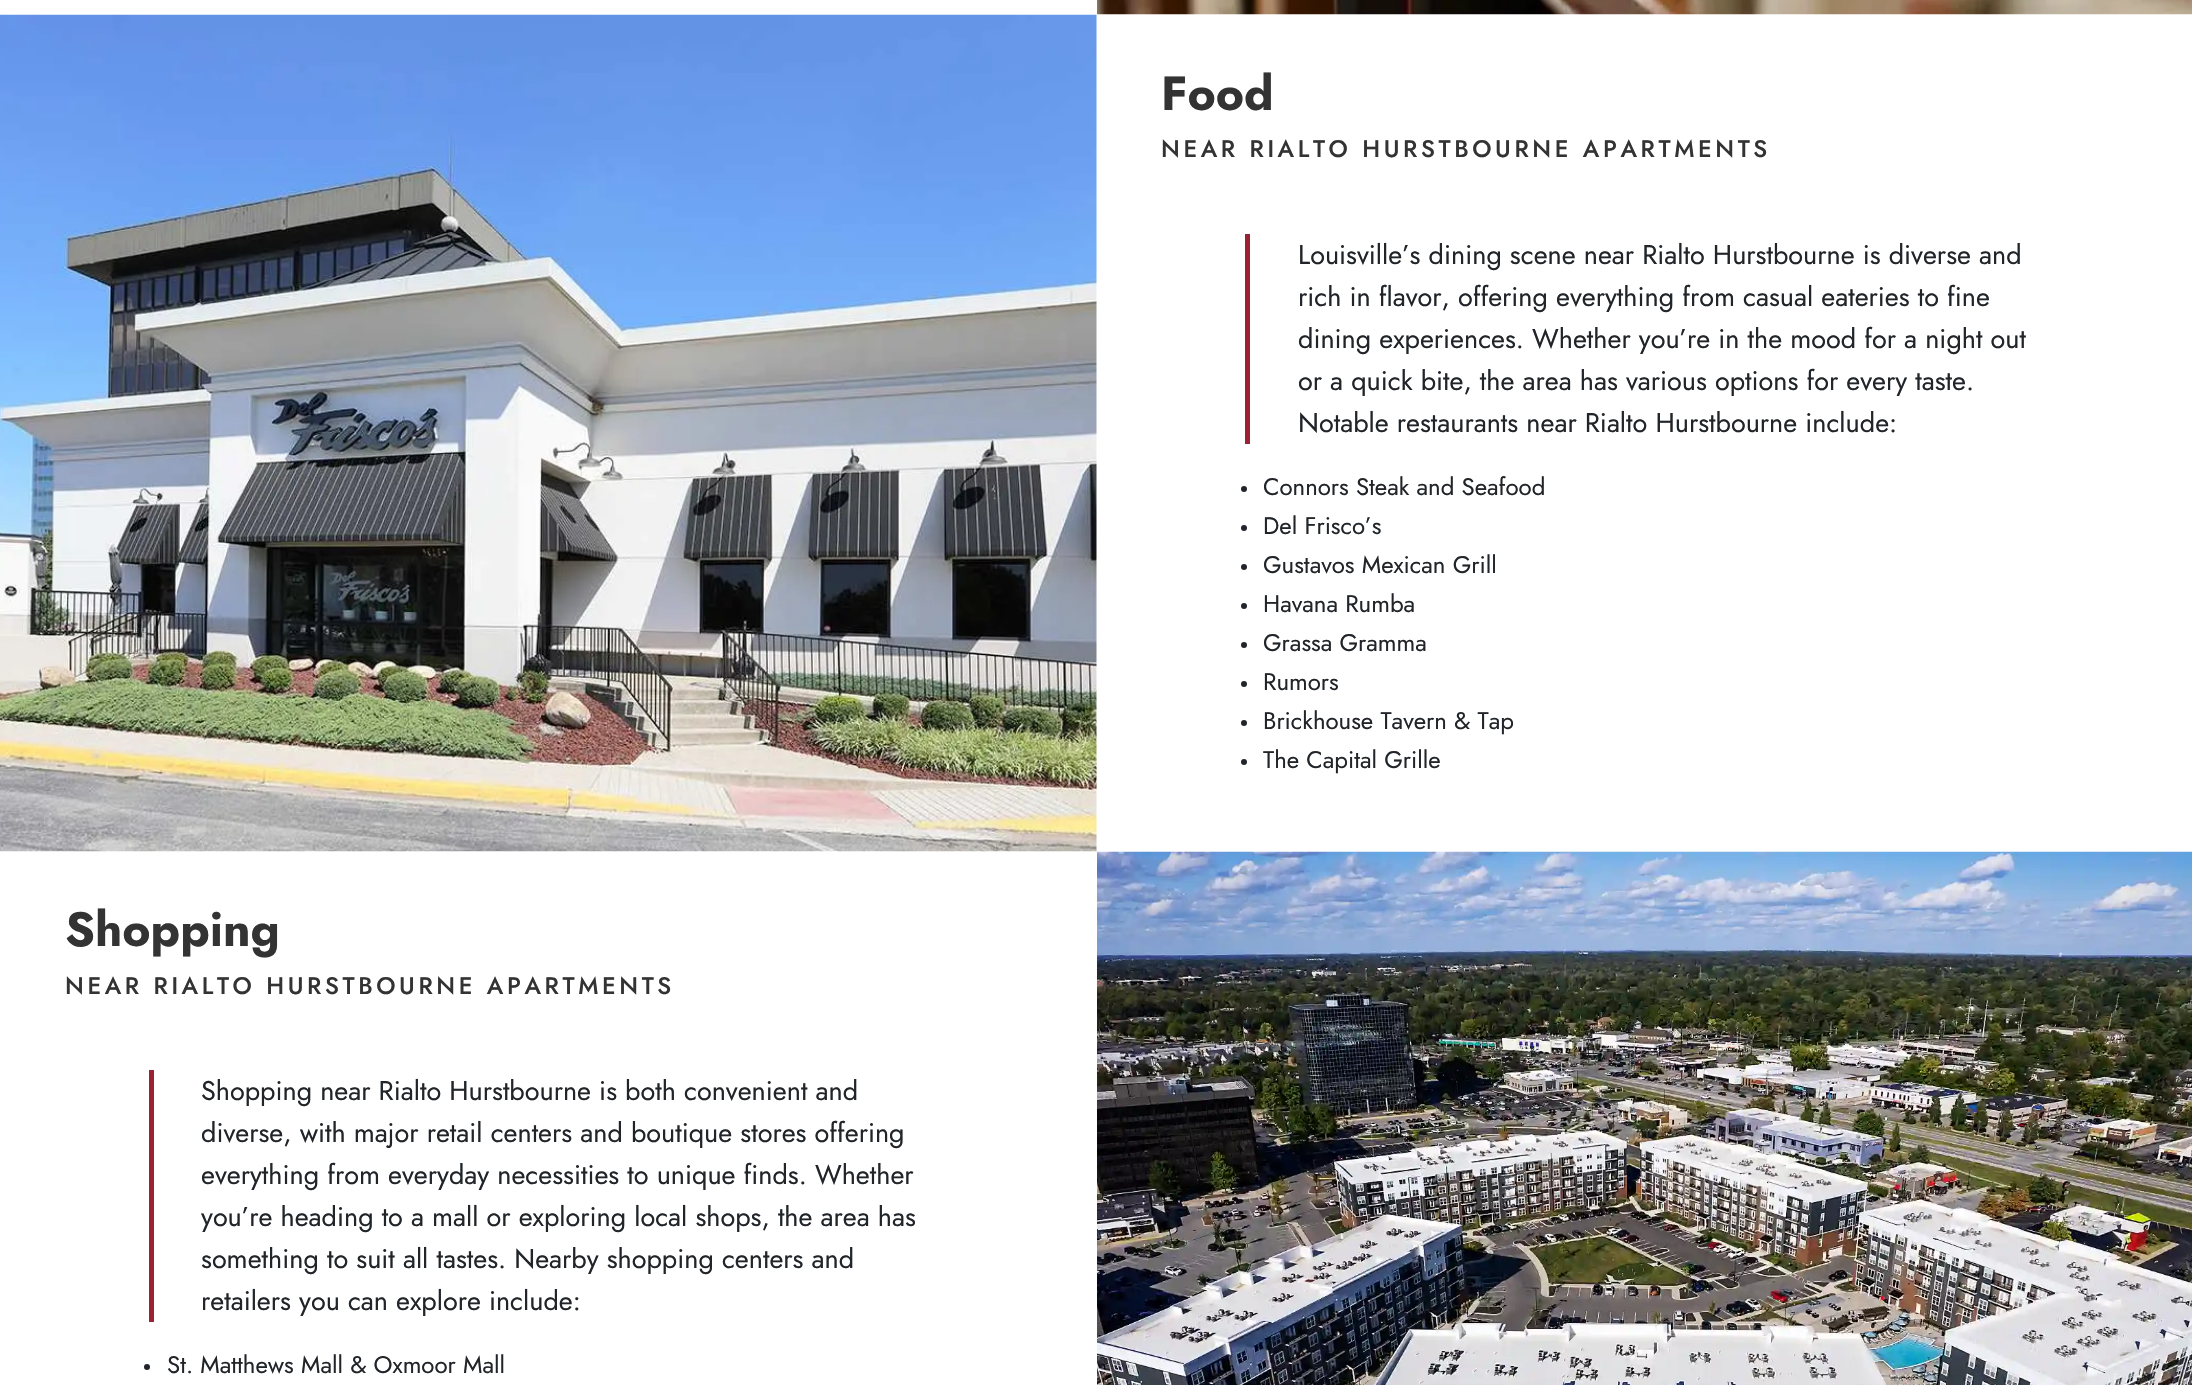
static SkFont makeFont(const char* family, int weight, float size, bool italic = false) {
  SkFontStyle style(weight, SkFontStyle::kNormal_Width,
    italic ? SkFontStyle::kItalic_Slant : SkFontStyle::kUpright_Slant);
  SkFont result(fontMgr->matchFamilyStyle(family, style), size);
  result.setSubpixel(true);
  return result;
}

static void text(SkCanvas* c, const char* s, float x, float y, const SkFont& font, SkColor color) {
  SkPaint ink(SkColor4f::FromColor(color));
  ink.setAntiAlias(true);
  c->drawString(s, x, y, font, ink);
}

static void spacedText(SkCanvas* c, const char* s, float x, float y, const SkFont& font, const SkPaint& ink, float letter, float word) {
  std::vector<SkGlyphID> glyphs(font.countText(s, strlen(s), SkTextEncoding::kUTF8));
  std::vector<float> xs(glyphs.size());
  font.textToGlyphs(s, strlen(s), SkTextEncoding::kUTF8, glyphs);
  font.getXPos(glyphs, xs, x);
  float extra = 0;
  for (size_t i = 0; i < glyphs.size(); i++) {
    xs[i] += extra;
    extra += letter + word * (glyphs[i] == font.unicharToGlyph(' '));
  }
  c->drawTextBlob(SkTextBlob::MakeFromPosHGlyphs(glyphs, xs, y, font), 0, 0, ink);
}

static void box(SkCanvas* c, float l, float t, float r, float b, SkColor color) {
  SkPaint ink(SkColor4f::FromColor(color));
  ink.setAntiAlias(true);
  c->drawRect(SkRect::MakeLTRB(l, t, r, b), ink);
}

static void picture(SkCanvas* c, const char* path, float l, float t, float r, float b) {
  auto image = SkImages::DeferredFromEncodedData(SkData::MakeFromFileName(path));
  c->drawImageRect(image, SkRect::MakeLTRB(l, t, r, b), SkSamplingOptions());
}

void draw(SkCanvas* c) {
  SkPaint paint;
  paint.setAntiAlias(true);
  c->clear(0xffffffff);
  picture(c, "img_01.png", 1097, 0, 2192, 15);
  picture(c, "img_02.png", 0, 14, 1097, 852);
  SkFont face1 = makeFont("Jost", 700, 48);
  text(c, "Food", 1161, 110, face1, 0xff333333);
  SkFont face2 = makeFont("Jost", 500, 24);
  paint.setColor(0xff333333);
  spacedText(c, "NEAR RIALTO HURSTBOURNE APARTMENTS", 1161, 157, face2, paint, 3.6f, 0);
  box(c, 1245, 234, 1250, 444, 0xff9b2235);
  SkFont face3 = makeFont("Jost", 400, 27);
  text(c, "Louisville’s dining scene near Rialto Hurstbourne is diverse and", 1298, 264, face3, 0xff212529);
  text(c, "rich in flavor, offering everything from casual eateries to fine", 1298, 306, face3, 0xff212529);
  text(c, "dining experiences. Whether you’re in the mood for a night out", 1298, 348, face3, 0xff212529);
  text(c, "or a quick bite, the area has various options for every taste.", 1298, 390, face3, 0xff212529);
  text(c, "Notable restaurants near Rialto Hurstbourne include:", 1298, 432, face3, 0xff212529);
  paint.setColor(0xff212529);
  c->drawCircle(1244, 489, 3, paint);
  SkFont face4 = makeFont("Jost", 400, 24);
  text(c, "Connors Steak and Seafood", 1263, 495, face4, 0xff212529);
  c->drawCircle(1244, 528, 3, paint);
  text(c, "Del Frisco’s", 1263, 534, face4, 0xff212529);
  c->drawCircle(1244, 567, 3, paint);
  text(c, "Gustavos Mexican Grill", 1263, 573, face4, 0xff212529);
  c->drawCircle(1244, 606, 3, paint);
  text(c, "Havana Rumba", 1263, 612, face4, 0xff212529);
  c->drawCircle(1244, 645, 3, paint);
  text(c, "Grassa Gramma", 1263, 651, face4, 0xff212529);
  c->drawCircle(1244, 684, 3, paint);
  text(c, "Rumors", 1263, 690, face4, 0xff212529);
  c->drawCircle(1244, 723, 3, paint);
  text(c, "Brickhouse Tavern & Tap", 1263, 729, face4, 0xff212529);
  c->drawCircle(1244, 762, 3, paint);
  text(c, "The Capital Grille", 1263, 768, face4, 0xff212529);
  picture(c, "img_03.png", 1096, 851, 2192, 1385);
  box(c, 1096, 852, 1097, 1385, 0xffffffff);
  text(c, "Shopping", 65, 946, face1, 0xff333333);
  paint.setColor(0xff333333);
  spacedText(c, "NEAR RIALTO HURSTBOURNE APARTMENTS", 65, 994, face2, paint, 3.6f, 0);
  box(c, 149, 1070, 154, 1322, 0xff9b2235);
  text(c, "Shopping near Rialto Hurstbourne is both convenient and", 201, 1100, face3, 0xff212529);
  text(c, "diverse, with major retail centers and boutique stores offering", 201, 1142, face3, 0xff212529);
  text(c, "everything from everyday necessities to unique finds. Whether", 201, 1184, face3, 0xff212529);
  text(c, "you’re heading to a mall or exploring local shops, the area has", 201, 1226, face3, 0xff212529);
  text(c, "something to suit all tastes. Nearby shopping centers and", 201, 1268, face3, 0xff212529);
  text(c, "retailers you can explore include:", 201, 1310, face3, 0xff212529);
  paint.setColor(0xff212529);
  c->drawCircle(147, 1367, 3, paint);
  text(c, "St. Matthews Mall & Oxmoor Mall", 167, 1373, face4, 0xff212529);
}
